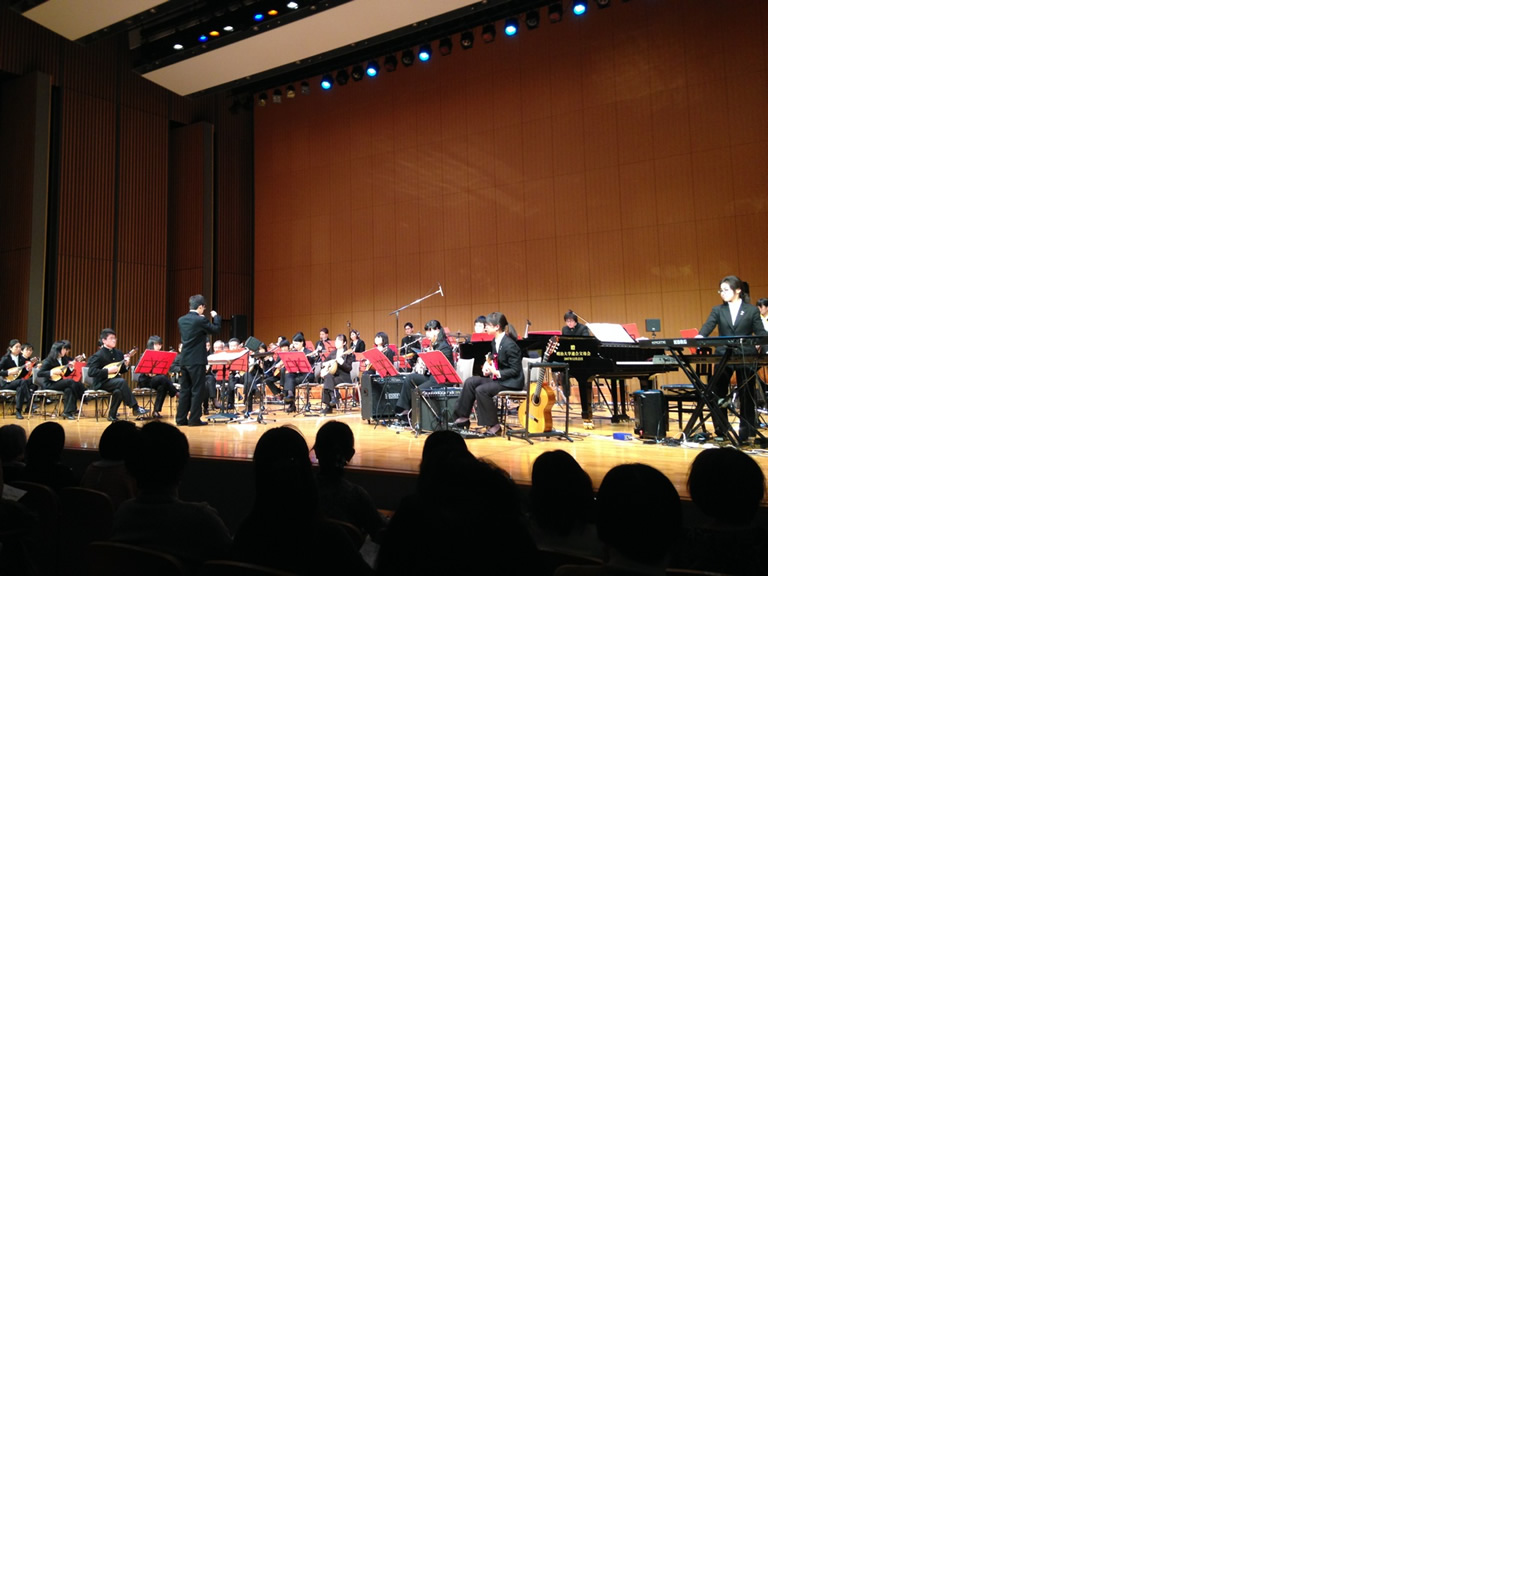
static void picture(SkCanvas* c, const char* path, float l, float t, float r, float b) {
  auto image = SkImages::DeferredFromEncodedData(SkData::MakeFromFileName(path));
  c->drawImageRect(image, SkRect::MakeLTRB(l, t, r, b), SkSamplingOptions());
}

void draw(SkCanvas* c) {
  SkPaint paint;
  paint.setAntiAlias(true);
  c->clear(0xffffffff);
  picture(c, "img_01.png", 0, 0, 768, 576);
}
